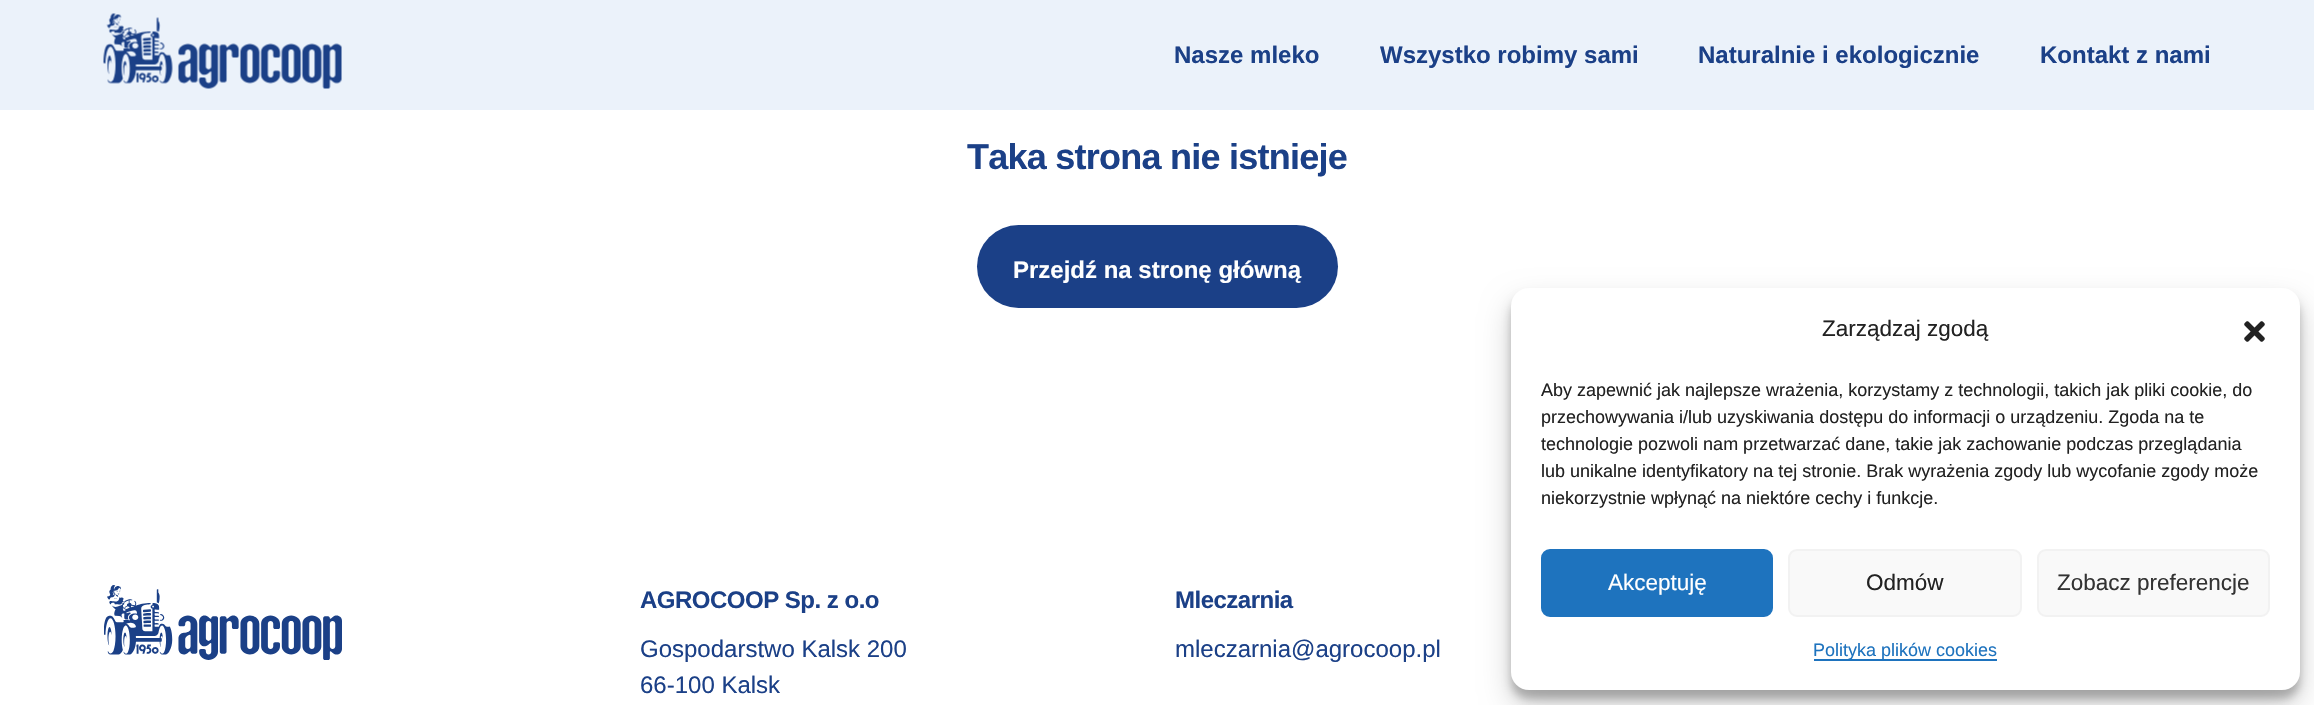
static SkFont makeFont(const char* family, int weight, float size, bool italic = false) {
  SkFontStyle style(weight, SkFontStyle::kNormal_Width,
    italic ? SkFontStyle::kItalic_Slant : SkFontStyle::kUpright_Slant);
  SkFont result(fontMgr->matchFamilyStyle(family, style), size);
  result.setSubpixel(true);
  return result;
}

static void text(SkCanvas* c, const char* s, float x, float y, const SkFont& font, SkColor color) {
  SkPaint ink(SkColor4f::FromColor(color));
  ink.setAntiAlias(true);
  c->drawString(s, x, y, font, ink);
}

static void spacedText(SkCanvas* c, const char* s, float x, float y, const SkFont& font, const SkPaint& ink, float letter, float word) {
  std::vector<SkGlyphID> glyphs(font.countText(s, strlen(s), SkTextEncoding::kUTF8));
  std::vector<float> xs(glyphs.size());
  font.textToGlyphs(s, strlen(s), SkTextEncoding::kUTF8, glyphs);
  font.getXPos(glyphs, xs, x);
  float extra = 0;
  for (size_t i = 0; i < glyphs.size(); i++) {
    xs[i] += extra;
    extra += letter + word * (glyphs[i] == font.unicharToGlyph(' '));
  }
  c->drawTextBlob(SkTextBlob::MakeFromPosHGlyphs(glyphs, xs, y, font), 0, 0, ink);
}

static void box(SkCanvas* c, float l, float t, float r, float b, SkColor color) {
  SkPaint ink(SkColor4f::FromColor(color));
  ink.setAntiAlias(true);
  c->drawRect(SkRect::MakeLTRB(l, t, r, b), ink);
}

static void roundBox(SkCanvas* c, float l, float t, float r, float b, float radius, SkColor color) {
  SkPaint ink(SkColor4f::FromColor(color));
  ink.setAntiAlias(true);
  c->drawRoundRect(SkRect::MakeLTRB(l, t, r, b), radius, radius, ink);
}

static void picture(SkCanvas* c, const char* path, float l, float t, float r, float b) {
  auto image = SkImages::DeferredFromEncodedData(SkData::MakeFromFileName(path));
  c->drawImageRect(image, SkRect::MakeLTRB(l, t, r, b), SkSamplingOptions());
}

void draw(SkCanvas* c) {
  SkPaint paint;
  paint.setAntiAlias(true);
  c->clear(0xffffffff);
  box(c, 0, 0, 2314, 110, 0xffebf2fa);
  picture(c, "img_01.png", 103, 13, 342, 89);
  SkFont face1 = makeFont("Liberation Sans", 700, 24);
  text(c, "Nasze mleko", 1174, 63, face1, 0xff1b4087);
  text(c, "Wszystko robimy sami", 1380, 63, face1, 0xff1b4087);
  text(c, "Naturalnie i ekologicznie", 1698, 63, face1, 0xff1b4087);
  text(c, "Kontakt z nami", 2040, 63, face1, 0xff1b4087);
  SkFont face2 = makeFont("Liberation Sans", 700, 36);
  paint.setColor(0xff1b4087);
  spacedText(c, "Taka strona nie istnieje", 967, 169, face2, paint, -0.75f, 0);
  roundBox(c, 977, 225, 1338, 308, 41.5f, 0xff1b4087);
  text(c, "Przejdź na stronę główną", 1013, 278, face1, 0xffffffff);
  picture(c, "img_02.png", 104, 585, 342, 660);
  spacedText(c, "AGROCOOP Sp. z o.o", 640, 608, face1, paint, -0.5f, 0);
  SkFont face3 = makeFont("Liberation Sans", 400, 24);
  text(c, "Gospodarstwo Kalsk 200", 640, 657, face3, 0xff1b4087);
  text(c, "66-100 Kalsk", 640, 693, face3, 0xff1b4087);
  spacedText(c, "Mleczarnia", 1175, 608, face1, paint, -0.5f, 0);
  text(c, "mleczarnia@agrocoop.pl", 1175, 657, face3, 0xff1b4087);
  paint.setColor(0x3b000000);
  paint.setMaskFilter(SkMaskFilter::MakeBlur(kNormal_SkBlurStyle, 4.5f));
  c->drawRoundRect(SkRect::MakeLTRB(1511, 297, 2300, 699), 18, 18, paint);
  paint.setMaskFilter(nullptr);
  paint.setColor(0x30000000);
  paint.setMaskFilter(SkMaskFilter::MakeBlur(kNormal_SkBlurStyle, 15));
  c->drawRoundRect(SkRect::MakeLTRB(1511, 303, 2300, 705), 18, 18, paint);
  paint.setMaskFilter(nullptr);
  roundBox(c, 1511, 288, 2300, 690, 18, 0xffffffff);
  SkFont face4 = makeFont("Liberation Sans", 400, 22.5f);
  text(c, "Zarządzaj zgodą", 1822, 336, face4, 0xff222222);
  picture(c, "img_03.png", 2244, 321, 2265, 342);
  SkFont face5 = makeFont("Liberation Sans", 400, 18);
  text(c, "Aby zapewnić jak najlepsze wrażenia, korzystamy z technologii, takich jak pliki cookie, do", 1541, 396, face5, 0xff222222);
  text(c, "przechowywania i/lub uzyskiwania dostępu do informacji o urządzeniu. Zgoda na te", 1541, 423, face5, 0xff222222);
  text(c, "technologie pozwoli nam przetwarzać dane, takie jak zachowanie podczas przeglądania", 1541, 450, face5, 0xff222222);
  text(c, "lub unikalne identyfikatory na tej stronie. Brak wyrażenia zgody lub wycofanie zgody może", 1541, 477, face5, 0xff222222);
  text(c, "niekorzystnie wpłynąć na niektóre cechy i funkcje.", 1541, 504, face5, 0xff222222);
  paint.setColor(0xff1e73be);
  c->drawRoundRect(SkRect::MakeLTRB(1542, 550, 1772, 616), 8, 8, paint);
  paint.setStyle(SkPaint::kStroke_Style);
  paint.setStrokeWidth(2);
  c->drawRoundRect(SkRect::MakeLTRB(1542, 550, 1772, 616), 8, 8, paint);
  text(c, "Akceptuję", 1608, 590, face4, 0xffffffff);
  paint.setStyle(SkPaint::kFill_Style);
  paint.setColor(0xfff9f9f9);
  c->drawRoundRect(SkRect::MakeLTRB(1789, 550, 2021, 616), 8, 8, paint);
  paint.setStyle(SkPaint::kStroke_Style);
  paint.setColor(0xfff2f2f2);
  c->drawRoundRect(SkRect::MakeLTRB(1789, 550, 2021, 616), 8, 8, paint);
  text(c, "Odmów", 1866, 590, face4, 0xff222222);
  paint.setStyle(SkPaint::kFill_Style);
  paint.setColor(0xfff9f9f9);
  c->drawRoundRect(SkRect::MakeLTRB(2038, 550, 2269, 616), 8, 8, paint);
  paint.setStyle(SkPaint::kStroke_Style);
  paint.setColor(0xfff2f2f2);
  c->drawRoundRect(SkRect::MakeLTRB(2038, 550, 2269, 616), 8, 8, paint);
  text(c, "Zobacz preferencje", 2057, 590, face4, 0xff333333);
  box(c, 1814, 659, 1997, 661, 0xff1e73be);
  text(c, "Polityka plików cookies", 1813, 656, face5, 0xff1e73be);
}
